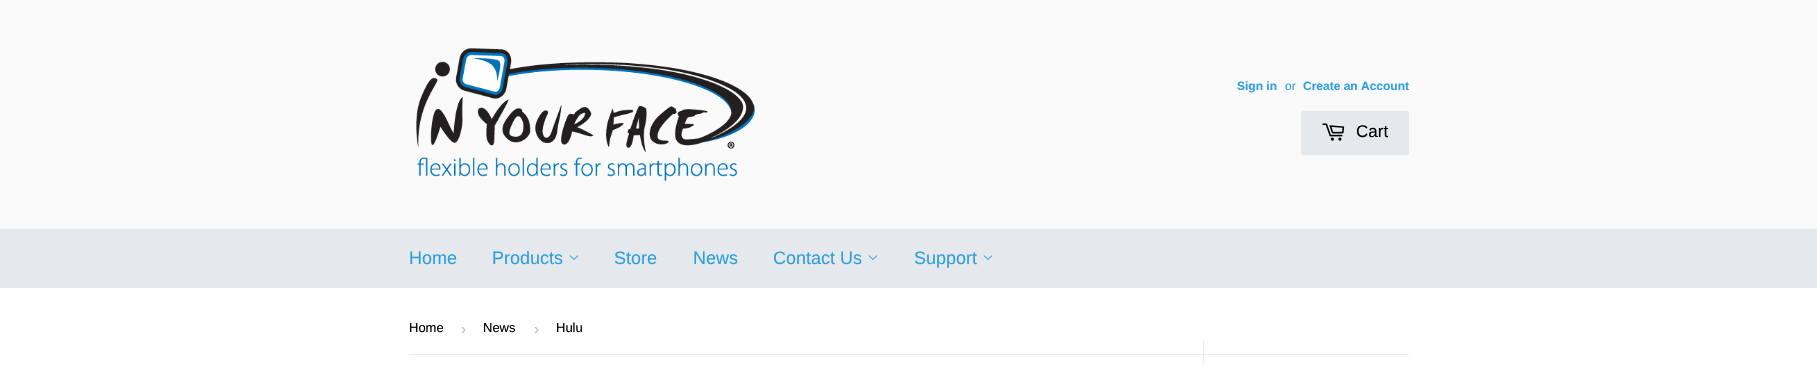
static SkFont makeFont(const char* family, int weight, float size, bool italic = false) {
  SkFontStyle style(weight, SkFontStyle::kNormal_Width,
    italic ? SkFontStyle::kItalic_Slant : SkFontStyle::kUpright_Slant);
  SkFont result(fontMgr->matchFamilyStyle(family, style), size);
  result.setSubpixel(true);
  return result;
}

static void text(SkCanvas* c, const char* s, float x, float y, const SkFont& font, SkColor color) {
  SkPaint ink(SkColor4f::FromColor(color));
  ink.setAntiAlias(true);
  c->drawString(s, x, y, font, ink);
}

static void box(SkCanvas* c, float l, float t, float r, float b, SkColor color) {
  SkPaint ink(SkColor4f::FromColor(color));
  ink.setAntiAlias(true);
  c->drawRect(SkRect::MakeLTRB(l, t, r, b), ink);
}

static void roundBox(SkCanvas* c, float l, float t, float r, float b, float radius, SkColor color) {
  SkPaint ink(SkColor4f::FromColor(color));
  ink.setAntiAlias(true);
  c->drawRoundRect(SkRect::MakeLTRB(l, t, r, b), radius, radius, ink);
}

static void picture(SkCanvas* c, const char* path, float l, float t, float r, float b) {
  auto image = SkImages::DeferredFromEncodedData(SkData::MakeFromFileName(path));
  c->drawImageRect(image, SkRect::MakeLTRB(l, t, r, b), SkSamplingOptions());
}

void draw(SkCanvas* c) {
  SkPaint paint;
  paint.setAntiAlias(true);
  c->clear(0xffffffff);
  box(c, 0, 0, 1817, 229, 0xfffafafa);
  picture(c, "img_01.png", 416, 48, 756, 182);
  SkFont face1 = makeFont("Liberation Sans", 700, 12);
  text(c, "Sign in", 1237, 90, face1, 0xff2d9ee0);
  SkFont face2 = makeFont("Liberation Sans", 400, 12);
  text(c, "or", 1285, 90, face2, 0xff2d9ee0);
  text(c, "Create an Account", 1303, 90, face1, 0xff2d9ee0);
  roundBox(c, 1301, 111, 1409, 155, 2, 0xffe6e9eb);
  picture(c, "img_02.png", 1322, 123, 1345, 141);
  SkFont face3 = makeFont("Liberation Sans", 400, 17);
  text(c, "Cart", 1356, 137, face3, 0xff000000);
  box(c, 0, 229, 1817, 288, 0xffe6e9eb);
  SkFont face4 = makeFont("Liberation Sans", 400, 18);
  text(c, "Home", 409, 264, face4, 0xff2d9ee0);
  text(c, "Products", 492, 264, face4, 0xff2d9ee0);
  picture(c, "img_03.png", 569, 255, 579, 260);
  text(c, "Store", 614, 264, face4, 0xff2d9ee0);
  text(c, "News", 693, 264, face4, 0xff2d9ee0);
  text(c, "Contact Us", 773, 264, face4, 0xff2d9ee0);
  picture(c, "img_03.png", 868, 255, 878, 260);
  text(c, "Support", 914, 264, face4, 0xff2d9ee0);
  picture(c, "img_03.png", 983, 255, 993, 260);
  box(c, 409, 354, 1409, 355, 0xffececec);
  SkFont face5 = makeFont("Liberation Sans", 400, 13);
  text(c, "Home", 409, 332, face5, 0xff000000);
  SkFont face6 = makeFont("Liberation Sans", 400, 15);
  text(c, "›", 461, 334, face6, 0xffbbbbbb);
  text(c, "News", 483, 332, face5, 0xff000000);
  text(c, "›", 534, 334, face6, 0xffbbbbbb);
  text(c, "Hulu", 556, 332, face5, 0xff000000);
  box(c, 1203, 340, 1204, 365, 0xffececec);
}
